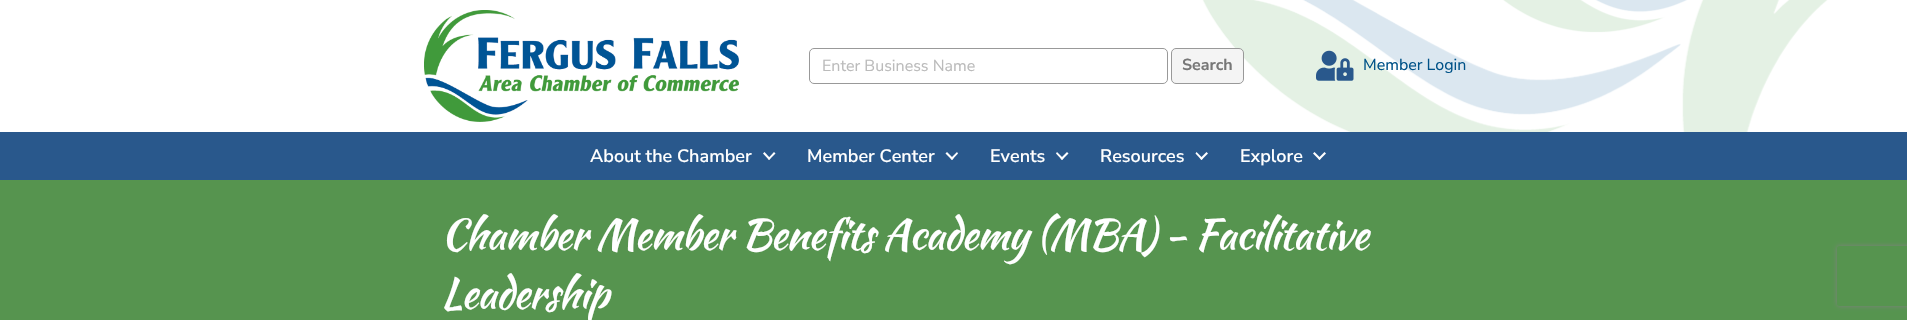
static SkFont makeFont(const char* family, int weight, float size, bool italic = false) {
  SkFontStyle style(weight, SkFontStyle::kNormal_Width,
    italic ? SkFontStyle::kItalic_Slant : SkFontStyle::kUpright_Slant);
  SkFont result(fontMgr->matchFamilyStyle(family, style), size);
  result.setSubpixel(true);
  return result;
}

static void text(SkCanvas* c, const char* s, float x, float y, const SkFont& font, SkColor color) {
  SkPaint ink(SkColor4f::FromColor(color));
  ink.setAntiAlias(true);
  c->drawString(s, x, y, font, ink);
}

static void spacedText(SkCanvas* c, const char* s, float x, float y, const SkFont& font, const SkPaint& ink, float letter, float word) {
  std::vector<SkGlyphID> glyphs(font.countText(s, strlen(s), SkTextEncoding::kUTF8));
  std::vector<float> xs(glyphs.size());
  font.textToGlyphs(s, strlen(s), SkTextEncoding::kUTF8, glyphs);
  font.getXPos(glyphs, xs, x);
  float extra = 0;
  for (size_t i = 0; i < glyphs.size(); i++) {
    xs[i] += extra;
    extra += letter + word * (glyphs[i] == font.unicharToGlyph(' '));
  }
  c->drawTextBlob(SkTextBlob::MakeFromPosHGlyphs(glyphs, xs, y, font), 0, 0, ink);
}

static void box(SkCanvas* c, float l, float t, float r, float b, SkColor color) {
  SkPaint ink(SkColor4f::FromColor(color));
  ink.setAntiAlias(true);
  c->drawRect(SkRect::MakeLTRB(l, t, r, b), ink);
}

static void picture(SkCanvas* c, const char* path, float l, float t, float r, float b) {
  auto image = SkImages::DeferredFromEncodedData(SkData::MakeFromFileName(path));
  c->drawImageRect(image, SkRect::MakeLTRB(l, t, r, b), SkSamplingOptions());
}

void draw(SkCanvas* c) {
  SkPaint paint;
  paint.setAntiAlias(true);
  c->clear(0xffffffff);
  picture(c, "img_01.png", 1202, 0, 1828, 132);
  picture(c, "img_02.png", 424, 10, 739, 122);
  paint.setStyle(SkPaint::kStroke_Style);
  paint.setStrokeWidth(1);
  paint.setColor(0xff999999);
  c->drawRoundRect(SkRect::MakeLTRB(809.5f, 48.5f, 1167.5f, 83.5f), 4.5f, 4.5f, paint);
  SkFont face1 = makeFont("Nunito Sans", 400, 16);
  text(c, "Enter Business Name", 822, 71, face1, 0xffbbbbbb);
  paint.setStyle(SkPaint::kFill_Style);
  paint.setColor(0xfff4f4f4);
  c->drawRoundRect(SkRect::MakeLTRB(1171.5f, 48.5f, 1243.5f, 83.5f), 4.5f, 4.5f, paint);
  paint.setStyle(SkPaint::kStroke_Style);
  paint.setColor(0xff999999);
  c->drawRoundRect(SkRect::MakeLTRB(1171.5f, 48.5f, 1243.5f, 83.5f), 4.5f, 4.5f, paint);
  SkFont face2 = makeFont("Nunito Sans", 700, 16);
  text(c, "Search", 1182, 70, face2, 0xff777777);
  picture(c, "img_03.png", 1316, 50, 1354, 81);
  text(c, "Member Login", 1363, 70, face1, 0xff005288);
  box(c, 0, 132, 1907, 180, 0xff29588c);
  SkFont face3 = makeFont("Nunito Sans", 600, 18);
  text(c, "About the Chamber", 590, 162, face3, 0xffffffff);
  paint.setStyle(SkPaint::kFill_Style);
  paint.setColor(0xffffffff);
  c->drawPath(SkPathBuilder().moveTo(774, 152).lineTo(775.5f, 153.5f).lineTo(769, 160).lineTo(768, 158.5f).close().detach(), paint);
  c->drawPath(SkPathBuilder().moveTo(764.5f, 152).lineTo(770.5f, 158.5f).lineTo(769, 160).lineTo(763, 153.5f).close().detach(), paint);
  text(c, "Member Center", 807, 162, face3, 0xffffffff);
  c->drawPath(SkPathBuilder().moveTo(957, 152).lineTo(958, 153.5f).lineTo(952, 160).lineTo(950.5f, 158.5f).close().detach(), paint);
  c->drawPath(SkPathBuilder().moveTo(947, 152).lineTo(953.5f, 158.5f).lineTo(952, 160).lineTo(945.5f, 153.5f).close().detach(), paint);
  text(c, "Events", 990, 162, face3, 0xffffffff);
  c->drawPath(SkPathBuilder().moveTo(1067, 152).lineTo(1068.5f, 153.5f).lineTo(1062, 160).lineTo(1060.5f, 158.5f).close().detach(), paint);
  c->drawPath(SkPathBuilder().moveTo(1057, 152).lineTo(1063.5f, 158.5f).lineTo(1062, 160).lineTo(1056, 153.5f).close().detach(), paint);
  text(c, "Resources", 1100, 162, face3, 0xffffffff);
  c->drawPath(SkPathBuilder().moveTo(1206.5f, 152).lineTo(1208, 153.5f).lineTo(1201.5f, 160).lineTo(1200, 158.5f).close().detach(), paint);
  c->drawPath(SkPathBuilder().moveTo(1196.5f, 152).lineTo(1203, 158.5f).lineTo(1201.5f, 160).lineTo(1195.5f, 153.5f).close().detach(), paint);
  text(c, "Explore", 1240, 162, face3, 0xffffffff);
  c->drawPath(SkPathBuilder().moveTo(1324.5f, 152).lineTo(1326, 153.5f).lineTo(1319.5f, 160).lineTo(1318, 158.5f).close().detach(), paint);
  c->drawPath(SkPathBuilder().moveTo(1314.5f, 152).lineTo(1321, 158.5f).lineTo(1319.5f, 160).lineTo(1313, 153.5f).close().detach(), paint);
  box(c, 0, 180, 1907, 320, 0xff56944f);
  SkFont face4 = makeFont("Kaushan Script", 400, 42);
  spacedText(c, "Chamber Member Benefits Academy (MBA) - Facilitative", 441, 249, face4, paint, -1, 0);
  spacedText(c, "Leadership", 441, 308, face4, paint, -1, 0);
  c->save();
  c->clipPath(SkPathBuilder(SkPathFillType::kEvenOdd).moveTo(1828, 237).lineTo(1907, 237).lineTo(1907, 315).lineTo(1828, 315).close().moveTo(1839, 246).lineTo(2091, 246).cubicTo(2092, 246, 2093, 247, 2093, 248).lineTo(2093, 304).cubicTo(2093, 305, 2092, 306, 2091, 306).lineTo(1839, 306).cubicTo(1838, 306, 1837, 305, 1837, 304).lineTo(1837, 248).cubicTo(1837, 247, 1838, 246, 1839, 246).close().detach(), true);
  paint.setColor(0xff808080);
  paint.setMaskFilter(SkMaskFilter::MakeBlur(kNormal_SkBlurStyle, 2.5f));
  c->drawRoundRect(SkRect::MakeLTRB(1837, 246, 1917, 306), 2, 2, paint);
  paint.setMaskFilter(nullptr);
  c->restore();
}
